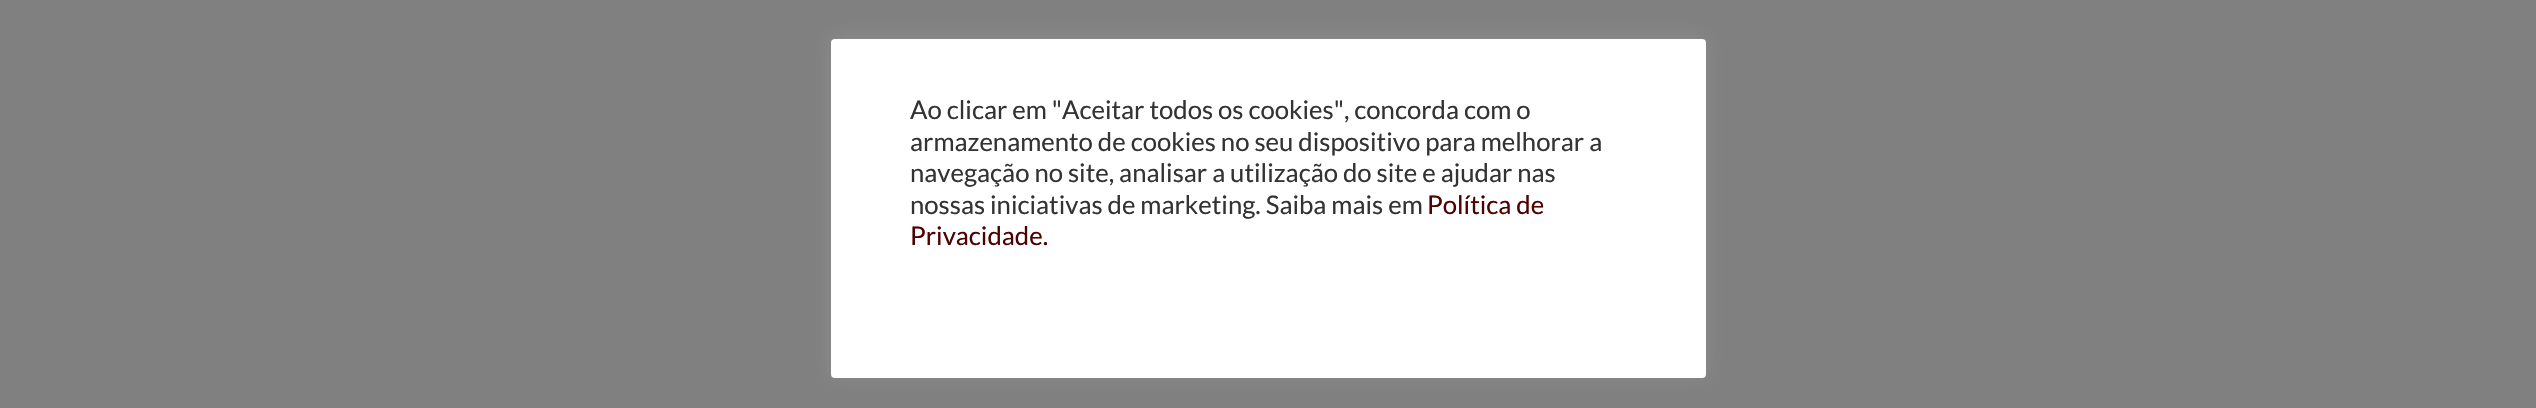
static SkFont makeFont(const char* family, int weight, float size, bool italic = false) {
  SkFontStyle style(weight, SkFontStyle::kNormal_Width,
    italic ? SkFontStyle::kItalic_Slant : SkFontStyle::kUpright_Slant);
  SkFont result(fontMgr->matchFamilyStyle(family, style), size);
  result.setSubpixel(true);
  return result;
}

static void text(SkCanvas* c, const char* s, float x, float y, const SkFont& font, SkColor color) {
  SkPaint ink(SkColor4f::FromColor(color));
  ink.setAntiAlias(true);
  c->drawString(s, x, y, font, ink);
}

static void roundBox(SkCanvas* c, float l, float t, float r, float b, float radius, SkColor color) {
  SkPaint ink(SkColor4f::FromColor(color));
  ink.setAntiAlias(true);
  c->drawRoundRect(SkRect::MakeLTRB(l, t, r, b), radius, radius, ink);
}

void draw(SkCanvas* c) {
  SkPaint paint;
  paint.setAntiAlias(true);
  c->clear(0xff808080);
  paint.setColor(0x4dacabab);
  paint.setMaskFilter(SkMaskFilter::MakeBlur(kNormal_SkBlurStyle, 9));
  c->drawRoundRect(SkRect::MakeLTRB(831, 37, 1706, 376), 4, 4, paint);
  paint.setMaskFilter(nullptr);
  roundBox(c, 831, 39, 1706, 378, 4, 0xffffffff);
  SkFont face1 = makeFont("Lato", 400, 25.7f);
  text(c, "Ao clicar em \"Aceitar todos os cookies\", concorda com o", 910, 119, face1, 0xff333333);
  text(c, "armazenamento de cookies no seu dispositivo para melhorar a", 910, 151, face1, 0xff333333);
  text(c, "navegação no site, analisar a utilização do site e ajudar nas", 910, 182, face1, 0xff333333);
  text(c, "nossas iniciativas de marketing. Saiba mais em", 910, 214, face1, 0xff333333);
  text(c, "Política de", 1427, 214, face1, 0xff4f0000);
  text(c, "Privacidade.", 910, 245, face1, 0xff4f0000);
}
